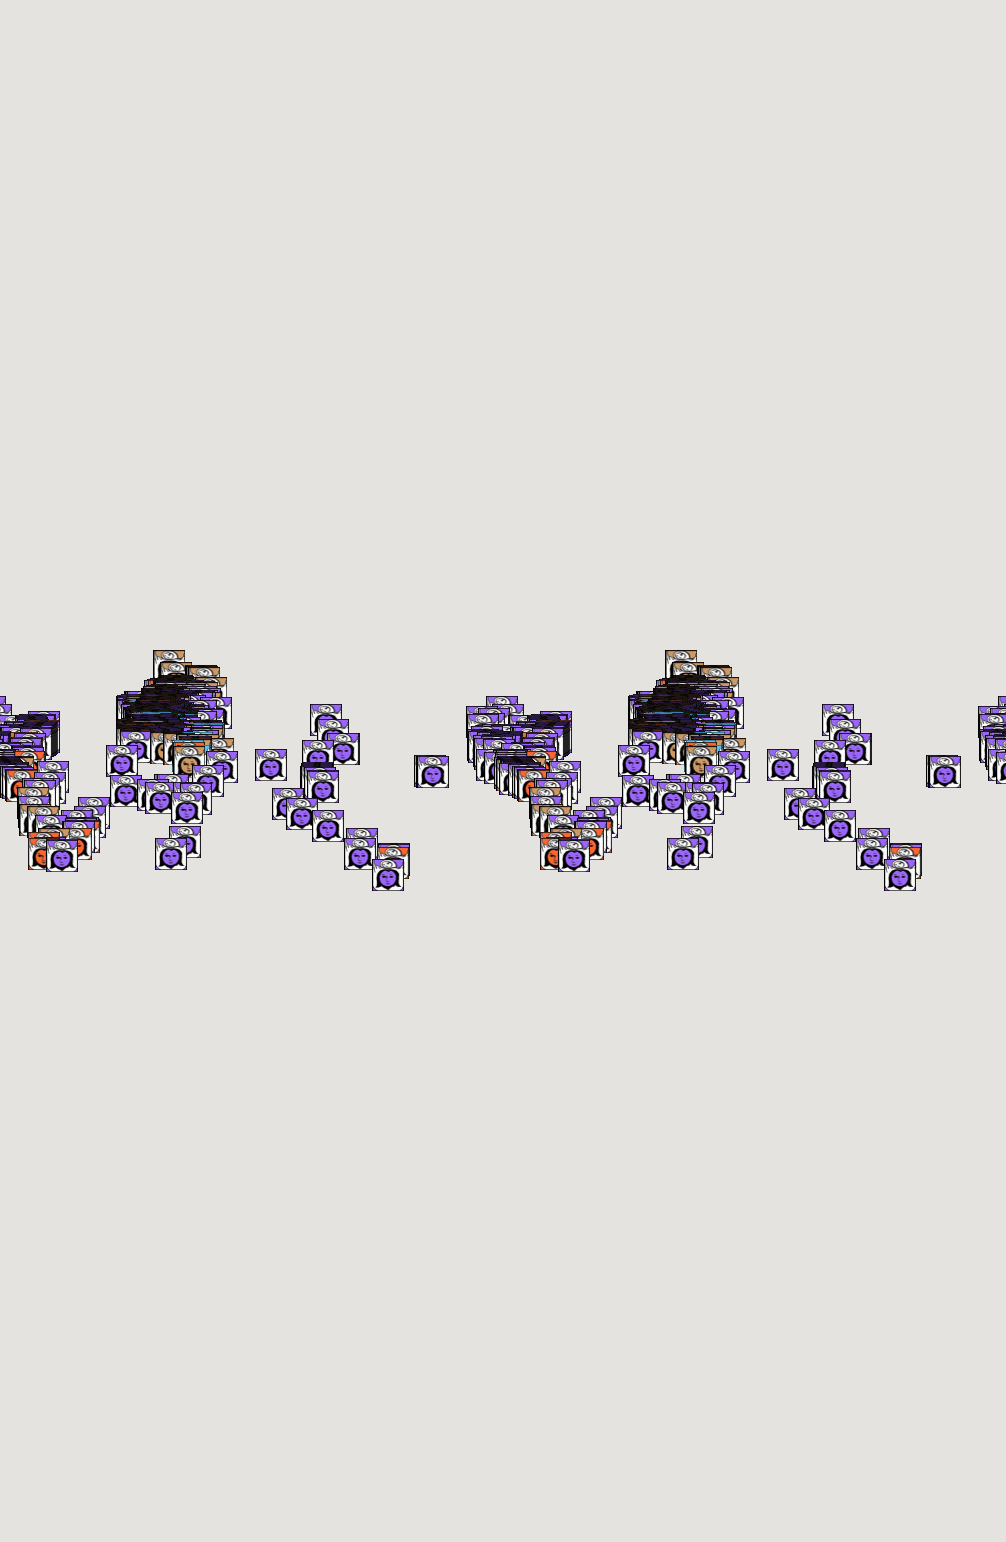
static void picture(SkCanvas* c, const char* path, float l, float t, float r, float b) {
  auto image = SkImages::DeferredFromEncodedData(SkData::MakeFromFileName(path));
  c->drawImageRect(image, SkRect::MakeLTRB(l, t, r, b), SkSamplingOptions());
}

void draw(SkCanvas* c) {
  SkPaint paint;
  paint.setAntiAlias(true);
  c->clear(0xffe5e3df);
  picture(c, "img_01.png", 0, 680, 145, 803);
  picture(c, "img_02.png", 145, 650, 360, 803);
  picture(c, "img_03.png", 414, 680, 657, 803);
  picture(c, "img_02.png", 657, 650, 872, 803);
  picture(c, "img_04.png", 926, 696, 1006, 788);
  picture(c, "img_05.png", 17, 803, 145, 872);
  picture(c, "img_06.png", 145, 803, 401, 891);
  picture(c, "img_07.png", 401, 803, 657, 891);
  picture(c, "img_06.png", 657, 803, 913, 891);
  picture(c, "img_08.png", 913, 843, 922, 891);
}
